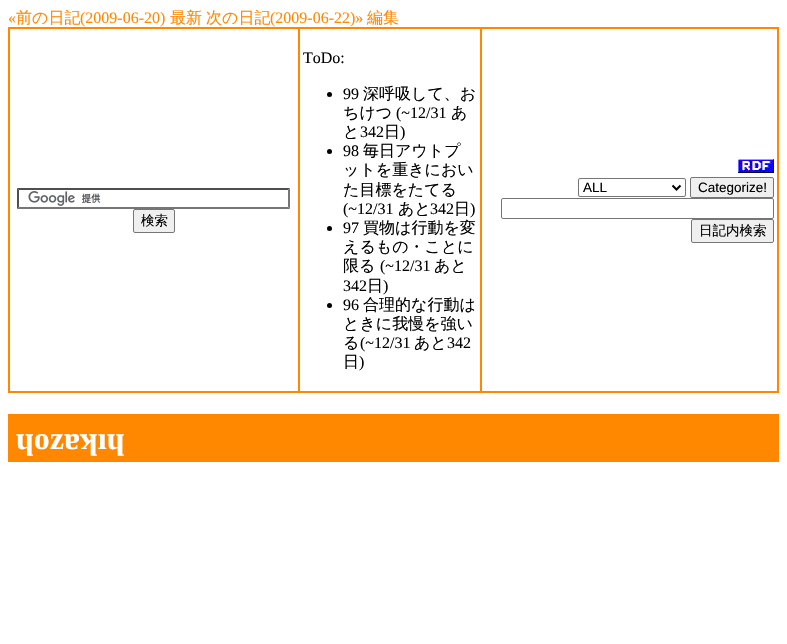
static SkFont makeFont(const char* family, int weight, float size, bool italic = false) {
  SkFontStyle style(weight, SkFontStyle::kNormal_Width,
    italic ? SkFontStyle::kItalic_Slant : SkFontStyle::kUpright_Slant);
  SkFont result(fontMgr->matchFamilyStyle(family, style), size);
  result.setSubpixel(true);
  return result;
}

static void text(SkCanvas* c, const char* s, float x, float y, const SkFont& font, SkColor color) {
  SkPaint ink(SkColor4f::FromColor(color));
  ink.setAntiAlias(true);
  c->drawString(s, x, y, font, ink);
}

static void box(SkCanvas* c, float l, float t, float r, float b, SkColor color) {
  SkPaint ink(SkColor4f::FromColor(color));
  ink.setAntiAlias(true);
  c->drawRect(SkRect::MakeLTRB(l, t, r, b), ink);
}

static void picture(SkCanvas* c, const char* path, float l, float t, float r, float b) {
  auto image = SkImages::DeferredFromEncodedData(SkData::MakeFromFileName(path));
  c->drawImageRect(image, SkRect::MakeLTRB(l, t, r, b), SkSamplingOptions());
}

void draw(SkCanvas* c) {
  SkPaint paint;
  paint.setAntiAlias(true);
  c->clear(0xffffffff);
  SkFont face1 = makeFont("Liberation Serif", 400, 16);
  text(c, "«", 8, 23, face1, 0xffff8800);
  SkFont face2 = makeFont("WenQuanYi Zen Hei", 500, 16);
  text(c, "前の日記", 16, 23, face2, 0xffff8800);
  text(c, "(2009-06-20)", 80, 23, face1, 0xffff8800);
  text(c, "最新", 170, 23, face2, 0xffff8800);
  text(c, "次の日記", 206, 23, face2, 0xffff8800);
  text(c, "(2009-06-22)»", 270, 23, face1, 0xffff8800);
  text(c, "編集", 367, 23, face2, 0xffff8800);
  box(c, 8, 27, 779, 393, 0xffff8800);
  box(c, 10, 29, 298, 391, 0xffffffff);
  picture(c, "img_01.png", 28, 191, 101, 206);
  paint.setColor(0xff4f4f4f);
  c->drawPath(SkPathBuilder().moveTo(17, 188).lineTo(290, 188).lineTo(288, 190).lineTo(19, 190).close().detach(), paint);
  paint.setColor(0xff767676);
  c->drawPath(SkPathBuilder().moveTo(290, 188).lineTo(290, 209).lineTo(288, 207).lineTo(288, 190).close().detach(), paint);
  c->drawPath(SkPathBuilder().moveTo(290, 209).lineTo(17, 209).lineTo(19, 207).lineTo(288, 207).close().detach(), paint);
  paint.setColor(0xff4f4f4f);
  c->drawPath(SkPathBuilder().moveTo(17, 209).lineTo(17, 188).lineTo(19, 190).lineTo(19, 207).close().detach(), paint);
  paint.setColor(0xffefefef);
  c->drawRoundRect(SkRect::MakeLTRB(133.5f, 209.5f, 174.5f, 232.5f), 1.5f, 1.5f, paint);
  paint.setStyle(SkPaint::kStroke_Style);
  paint.setStrokeWidth(1);
  paint.setColor(0xff767676);
  c->drawRoundRect(SkRect::MakeLTRB(133.5f, 209.5f, 174.5f, 232.5f), 1.5f, 1.5f, paint);
  SkFont face3 = makeFont("WenQuanYi Zen Hei", 500, 13.5f);
  text(c, "検索", 141, 225, face3, 0xff000000);
  box(c, 300, 29, 480, 391, 0xffffffff);
  text(c, "ToDo:", 303, 63, face1, 0xff000000);
  paint.setStyle(SkPaint::kFill_Style);
  paint.setColor(0xff000000);
  c->drawCircle(329.5f, 94.5f, 2.5f, paint);
  text(c, "99", 343, 99, face1, 0xff000000);
  text(c, "深呼吸して、お", 363, 99, face2, 0xff000000);
  text(c, "ちけつ", 343, 118, face2, 0xff000000);
  text(c, "(~12/31", 396, 118, face1, 0xff000000);
  text(c, "あ", 451, 118, face2, 0xff000000);
  text(c, "と", 343, 137, face2, 0xff000000);
  text(c, "342", 360, 137, face1, 0xff000000);
  text(c, "日", 384, 137, face2, 0xff000000);
  text(c, ")", 400, 137, face1, 0xff000000);
  c->drawCircle(329.5f, 151.5f, 2.5f, paint);
  text(c, "98", 343, 156, face1, 0xff000000);
  text(c, "毎日アウトプ", 363, 156, face2, 0xff000000);
  text(c, "ットを重きにおい", 343, 175, face2, 0xff000000);
  text(c, "た目標をたてる", 343, 195, face2, 0xff000000);
  text(c, "(~12/31", 343, 214, face1, 0xff000000);
  text(c, "あと", 398, 214, face2, 0xff000000);
  text(c, "342", 430, 214, face1, 0xff000000);
  text(c, "日", 454, 214, face2, 0xff000000);
  text(c, ")", 470, 214, face1, 0xff000000);
  c->drawCircle(329.5f, 228.5f, 2.5f, paint);
  text(c, "97", 343, 233, face1, 0xff000000);
  text(c, "買物は行動を変", 363, 233, face2, 0xff000000);
  text(c, "えるもの・ことに", 343, 252, face2, 0xff000000);
  text(c, "限る", 343, 271, face2, 0xff000000);
  text(c, "(~12/31", 380, 271, face1, 0xff000000);
  text(c, "あと", 434, 271, face2, 0xff000000);
  text(c, "342", 343, 291, face1, 0xff000000);
  text(c, "日", 367, 291, face2, 0xff000000);
  text(c, ")", 383, 291, face1, 0xff000000);
  c->drawCircle(329.5f, 305.5f, 2.5f, paint);
  text(c, "96", 343, 310, face1, 0xff000000);
  text(c, "合理的な行動は", 363, 310, face2, 0xff000000);
  text(c, "ときに我慢を強い", 343, 329, face2, 0xff000000);
  text(c, "る", 343, 348, face2, 0xff000000);
  text(c, "(~12/31", 360, 348, face1, 0xff000000);
  text(c, "あと", 414, 348, face2, 0xff000000);
  text(c, "342", 447, 348, face1, 0xff000000);
  text(c, "日", 343, 367, face2, 0xff000000);
  text(c, ")", 359, 367, face1, 0xff000000);
  box(c, 482, 29, 777, 391, 0xffffffff);
  picture(c, "img_02.png", 738, 159, 774, 173);
  paint.setStyle(SkPaint::kStroke_Style);
  paint.setColor(0xff767676);
  c->drawRoundRect(SkRect::MakeLTRB(578.5f, 178.5f, 685.5f, 196.5f), 1.5f, 1.5f, paint);
  paint.setStrokeWidth(2);
  paint.setColor(0xff000000);
  c->drawPath(SkPathBuilder().moveTo(672.5f, 185.5f).lineTo(676.5f, 189.5f).lineTo(680.5f, 185.5f).detach(), paint);
  SkFont face4 = makeFont("Liberation Sans", 400, 13.5f);
  text(c, "ALL", 583, 192, face4, 0xff000000);
  paint.setStyle(SkPaint::kFill_Style);
  paint.setColor(0xffefefef);
  c->drawRoundRect(SkRect::MakeLTRB(690.5f, 177.5f, 773.5f, 197.5f), 1.5f, 1.5f, paint);
  paint.setStyle(SkPaint::kStroke_Style);
  paint.setStrokeWidth(1);
  paint.setColor(0xff767676);
  c->drawRoundRect(SkRect::MakeLTRB(690.5f, 177.5f, 773.5f, 197.5f), 1.5f, 1.5f, paint);
  text(c, "Categorize!", 698, 192, face4, 0xff000000);
  c->drawRoundRect(SkRect::MakeLTRB(501.5f, 198.5f, 773.5f, 218.5f), 1.5f, 1.5f, paint);
  paint.setStyle(SkPaint::kFill_Style);
  paint.setColor(0xffefefef);
  c->drawRoundRect(SkRect::MakeLTRB(691.5f, 219.5f, 773.5f, 242.5f), 1.5f, 1.5f, paint);
  paint.setStyle(SkPaint::kStroke_Style);
  paint.setColor(0xff767676);
  c->drawRoundRect(SkRect::MakeLTRB(691.5f, 219.5f, 773.5f, 242.5f), 1.5f, 1.5f, paint);
  text(c, "日記内検索", 699, 235, face3, 0xff000000);
  box(c, 8, 414, 779, 462, 0xffff8800);
  SkFont face5 = makeFont("Liberation Serif", 700, 32);
  text(c, "ɥozɐʞıɥ", 16, 449, face5, 0xffffffff);
}
